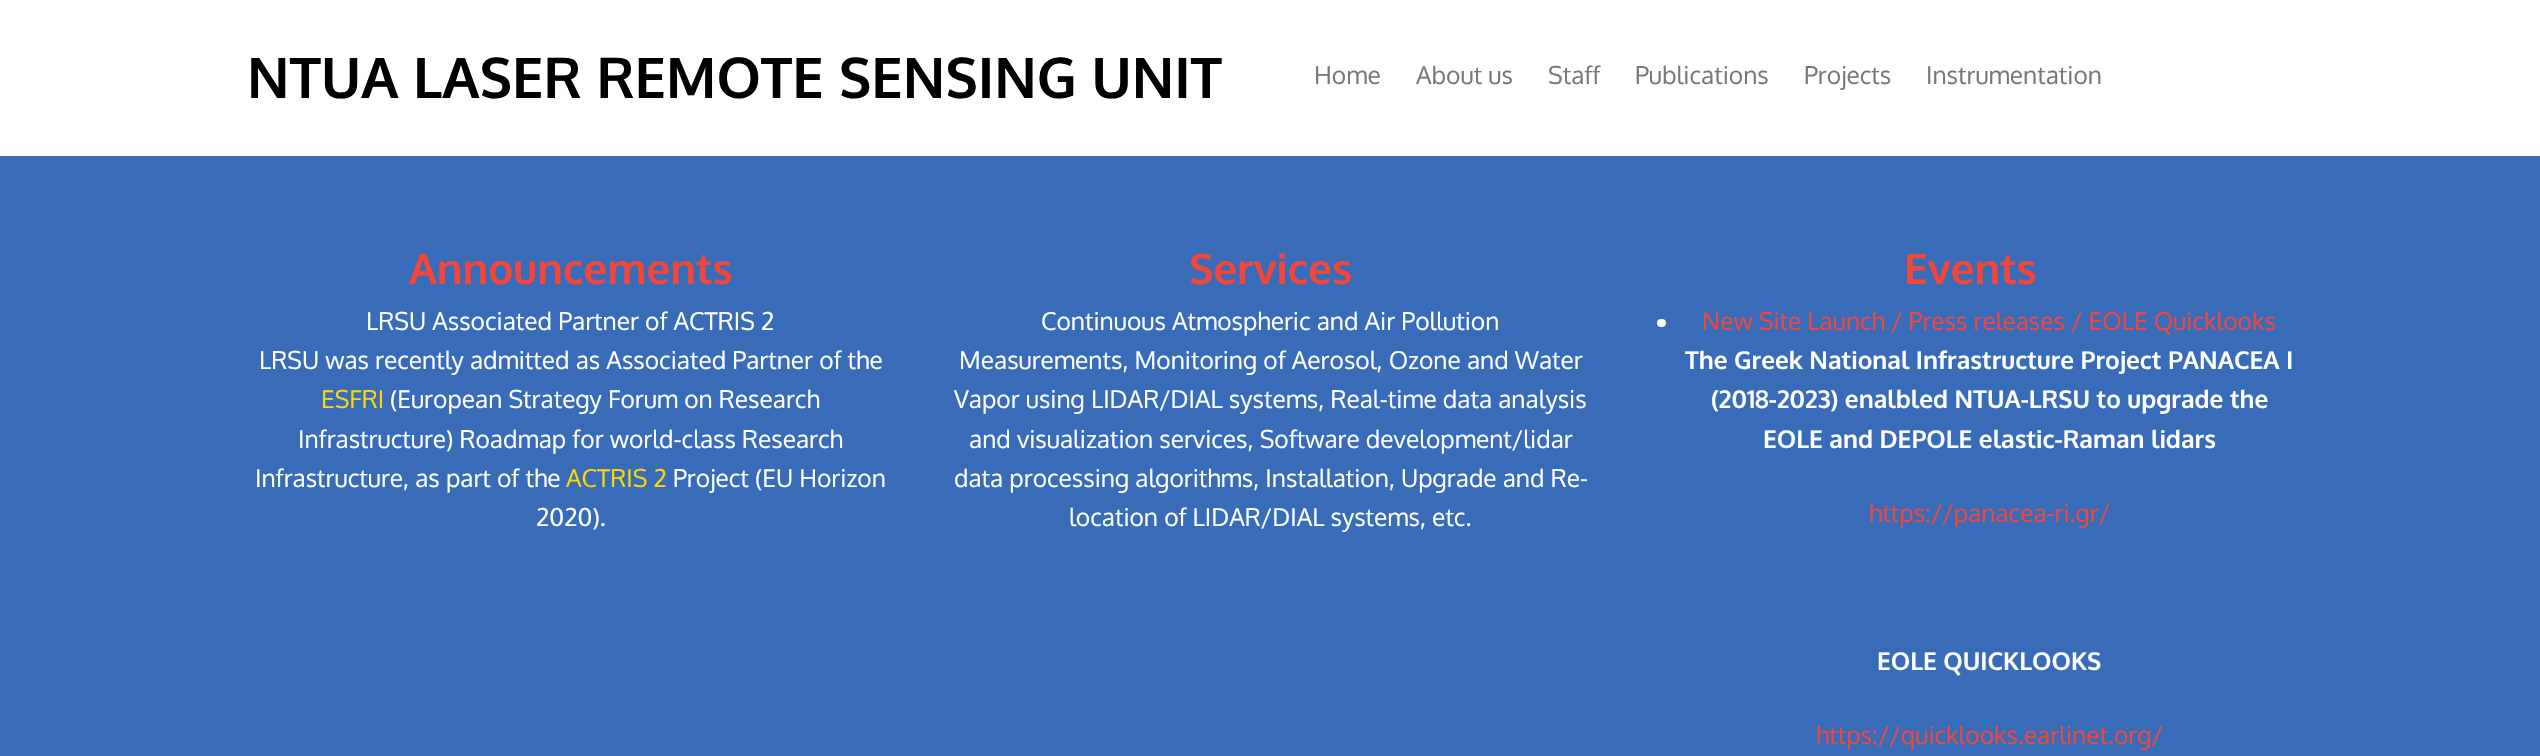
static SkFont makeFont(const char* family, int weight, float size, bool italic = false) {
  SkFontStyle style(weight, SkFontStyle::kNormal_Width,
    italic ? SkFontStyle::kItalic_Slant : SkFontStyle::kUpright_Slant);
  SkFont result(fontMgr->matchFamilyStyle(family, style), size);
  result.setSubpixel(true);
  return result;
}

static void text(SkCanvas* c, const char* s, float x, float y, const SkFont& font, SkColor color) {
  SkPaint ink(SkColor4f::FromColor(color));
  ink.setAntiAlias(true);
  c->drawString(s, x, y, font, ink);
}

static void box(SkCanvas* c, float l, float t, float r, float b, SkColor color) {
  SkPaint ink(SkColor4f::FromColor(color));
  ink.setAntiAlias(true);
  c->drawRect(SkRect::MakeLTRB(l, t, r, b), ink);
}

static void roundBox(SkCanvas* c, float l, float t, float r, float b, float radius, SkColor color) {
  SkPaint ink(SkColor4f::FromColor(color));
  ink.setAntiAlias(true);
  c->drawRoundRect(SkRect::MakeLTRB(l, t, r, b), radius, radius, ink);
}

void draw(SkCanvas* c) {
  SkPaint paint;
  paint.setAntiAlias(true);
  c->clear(0xffffffff);
  SkFont face1 = makeFont("Oxygen", 700, 56);
  text(c, "NTUA LASER REMOTE SENSING UNIT", 247, 98, face1, 0xff000000);
  SkFont face2 = makeFont("Oxygen", 400, 24.5f);
  text(c, "Home", 1314, 84, face2, 0xff777777);
  text(c, "About us", 1416, 84, face2, 0xff777777);
  text(c, "Staff", 1548, 84, face2, 0xff777777);
  text(c, "Publications", 1635, 84, face2, 0xff777777);
  text(c, "Projects", 1804, 84, face2, 0xff777777);
  text(c, "Instrumentation", 1926, 84, face2, 0xff777777);
  box(c, 0, 156, 2540, 756, 0xff386cb8);
  SkFont face3 = makeFont("Oxygen", 700, 42);
  text(c, "Announcements", 409, 284, face3, 0xfff4473a);
  text(c, "LRSU Associated Partner of ACTRIS 2", 366, 330, face2, 0xffffffff);
  text(c, "LRSU was recently admitted as Associated Partner of the", 259, 369, face2, 0xffffffff);
  text(c, "ESFRI", 321, 408, face2, 0xffffd700);
  text(c, "(European Strategy Forum on Research", 390, 408, face2, 0xffffffff);
  text(c, "Infrastructure) Roadmap for world-class Research", 298, 448, face2, 0xffffffff);
  text(c, "Infrastructure, as part of the", 255, 487, face2, 0xffffffff);
  text(c, "ACTRIS 2", 566, 487, face2, 0xffffd700);
  text(c, "Project (EU Horizon", 673, 487, face2, 0xffffffff);
  text(c, "2020).", 536, 526, face2, 0xffffffff);
  text(c, "Services", 1189, 284, face3, 0xfff4473a);
  text(c, "Continuous Atmospheric and Air Pollution", 1041, 330, face2, 0xffffffff);
  text(c, "Measurements, Monitoring of Aerosol, Ozone and Water", 959, 369, face2, 0xffffffff);
  text(c, "Vapor using LIDAR/DIAL systems, Real-time data analysis", 954, 408, face2, 0xffffffff);
  text(c, "and visualization services, Software development/lidar", 969, 448, face2, 0xffffffff);
  text(c, "data processing algorithms, Installation, Upgrade and Re-", 954, 487, face2, 0xffffffff);
  text(c, "location of LIDAR/DIAL systems, etc.", 1069, 526, face2, 0xffffffff);
  text(c, "Events", 1904, 284, face3, 0xfff4473a);
  roundBox(c, 1657, 319, 1666, 327, 4, 0xffffffff);
  text(c, "New Site Launch / Press releases / EOLE Quicklooks", 1702, 330, face2, 0xfff4473a);
  SkFont face4 = makeFont("Oxygen", 700, 24.5f);
  text(c, "The Greek National Infrastructure Project PANACEA I", 1685, 369, face4, 0xffffffff);
  text(c, "(2018-2023) enalbled NTUA-LRSU to upgrade the", 1711, 408, face4, 0xffffffff);
  text(c, "EOLE and DEPOLE elastic-Raman lidars", 1763, 448, face4, 0xffffffff);
  text(c, "https://panacea-ri.gr/", 1869, 522, face2, 0xfff4473a);
  text(c, "EOLE QUICKLOOKS", 1877, 670, face4, 0xffffffff);
  text(c, "https://quicklooks.earlinet.org/", 1816, 744, face2, 0xfff4473a);
}
